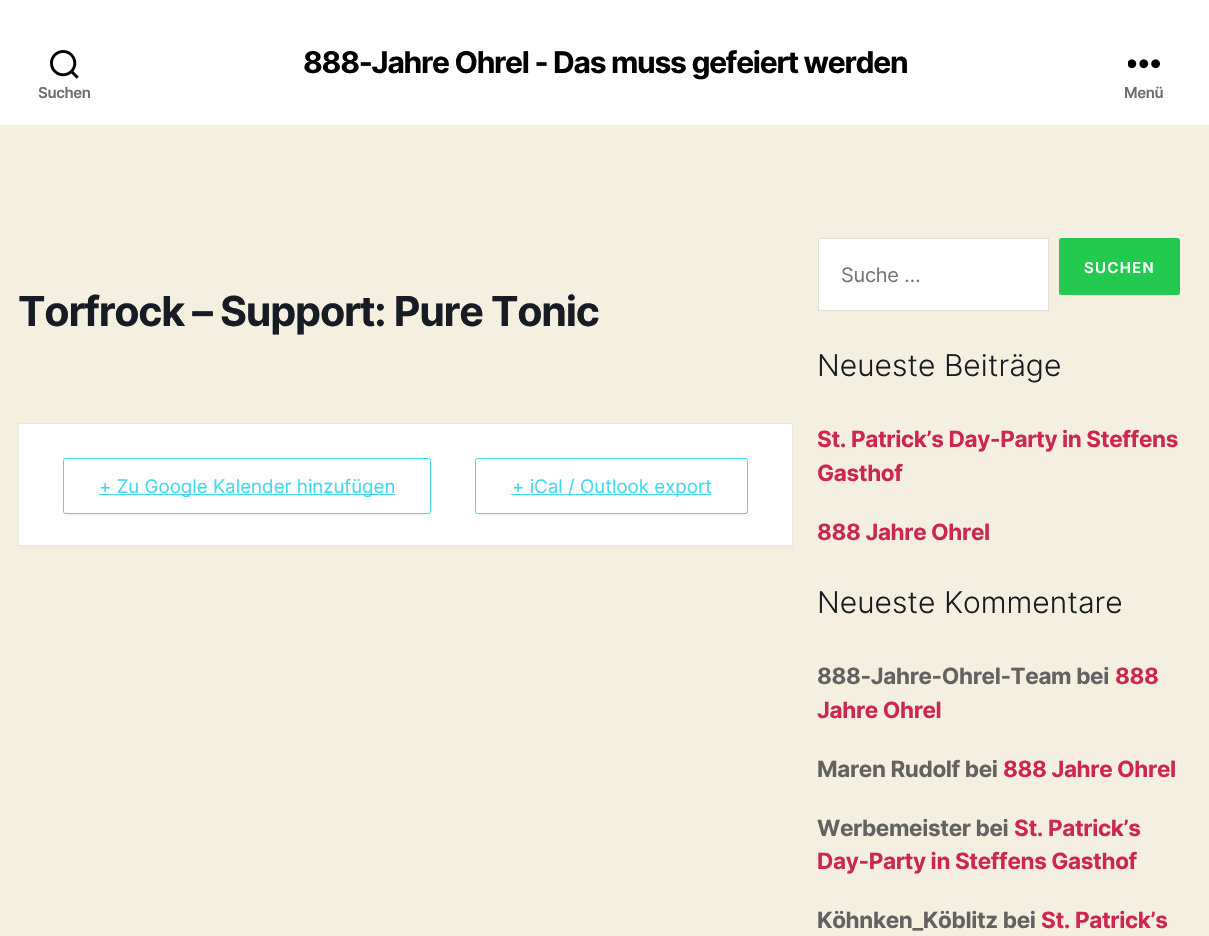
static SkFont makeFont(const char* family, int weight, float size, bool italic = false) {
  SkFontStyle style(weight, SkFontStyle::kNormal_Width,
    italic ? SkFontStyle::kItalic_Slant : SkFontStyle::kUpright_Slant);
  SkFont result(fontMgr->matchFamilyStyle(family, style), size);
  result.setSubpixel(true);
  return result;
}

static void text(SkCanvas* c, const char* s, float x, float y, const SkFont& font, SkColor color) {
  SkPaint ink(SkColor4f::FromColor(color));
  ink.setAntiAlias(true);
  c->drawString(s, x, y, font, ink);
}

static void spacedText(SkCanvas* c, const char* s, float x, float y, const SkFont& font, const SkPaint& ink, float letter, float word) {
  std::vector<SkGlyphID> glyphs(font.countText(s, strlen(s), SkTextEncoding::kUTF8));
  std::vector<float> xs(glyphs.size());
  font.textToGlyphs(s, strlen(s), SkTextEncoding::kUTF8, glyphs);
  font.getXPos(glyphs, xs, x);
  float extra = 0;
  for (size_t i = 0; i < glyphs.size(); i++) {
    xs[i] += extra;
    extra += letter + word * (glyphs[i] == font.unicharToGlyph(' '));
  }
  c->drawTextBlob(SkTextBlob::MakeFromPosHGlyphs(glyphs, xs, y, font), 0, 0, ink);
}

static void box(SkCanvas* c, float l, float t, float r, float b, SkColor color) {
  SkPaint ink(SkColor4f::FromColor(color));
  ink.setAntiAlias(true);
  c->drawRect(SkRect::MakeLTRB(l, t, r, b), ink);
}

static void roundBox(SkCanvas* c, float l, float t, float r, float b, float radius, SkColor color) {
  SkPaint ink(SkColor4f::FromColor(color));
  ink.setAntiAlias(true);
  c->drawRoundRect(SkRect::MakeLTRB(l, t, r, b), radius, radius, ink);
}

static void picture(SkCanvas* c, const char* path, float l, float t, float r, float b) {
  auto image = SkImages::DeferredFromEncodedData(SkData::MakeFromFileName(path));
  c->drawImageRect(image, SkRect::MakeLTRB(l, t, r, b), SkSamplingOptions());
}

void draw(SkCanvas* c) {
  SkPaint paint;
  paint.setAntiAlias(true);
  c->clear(0xfff5efe0);
  box(c, 0, 0, 1209, 125, 0xffffffff);
  SkFont face1 = makeFont("Inter", 700, 30);
  paint.setColor(0xff000000);
  spacedText(c, "888-Jahre Ohrel - Das muss gefeiert werden", 303, 73, face1, paint, -1.25f, 0);
  picture(c, "img_01.png", 50, 50, 79, 79);
  SkFont face2 = makeFont("Inter", 600, 15);
  paint.setColor(0xff6d6d6d);
  spacedText(c, "Suchen", 38, 98, face2, paint, -0.35f, 0);
  picture(c, "img_02.png", 1128, 59, 1160, 69);
  spacedText(c, "Menü", 1124, 98, face2, paint, -0.35f, 0);
  SkFont face3 = makeFont("Inter", 700, 41.25f);
  paint.setColor(0xff171c24);
  spacedText(c, "Torfrock – Support: Pure Tonic", 18, 326, face3, paint, -1.25f, 0);
  paint.setColor(0xfff1ebdc);
  c->drawPath(SkPathBuilder().moveTo(18, 546).lineTo(18, 549).lineTo(793, 549).lineTo(793, 425).lineTo(792, 425).lineTo(792, 546).close().detach(), paint);
  paint.setColor(0xffffffff);
  c->drawRect(SkRect::MakeLTRB(18.5f, 423.5f, 792.5f, 545.5f), paint);
  paint.setStyle(SkPaint::kStroke_Style);
  paint.setStrokeWidth(1);
  paint.setColor(0xffe6e6e6);
  c->drawRect(SkRect::MakeLTRB(18.5f, 423.5f, 792.5f, 545.5f), paint);
  paint.setStyle(SkPaint::kFill_Style);
  paint.setColor(0xfff7f7f7);
  c->drawPath(SkPathBuilder().moveTo(63, 513).cubicTo(63, 514, 64, 516, 66, 516).lineTo(428, 516).lineTo(431, 515).lineTo(431, 512).cubicTo(431, 513, 430, 514, 429, 514).lineTo(65, 514).close().detach(), paint);
  paint.setStyle(SkPaint::kStroke_Style);
  paint.setColor(0xff40d9f1);
  c->drawRoundRect(SkRect::MakeLTRB(63.5f, 458.5f, 430.5f, 513.5f), 2, 2, paint);
  box(c, 99, 494, 395, 495, 0xff40d9f1);
  SkFont face4 = makeFont("Inter", 400, 18.75f);
  text(c, "+ Zu Google Kalender hinzufügen", 99, 493, face4, 0xff40d9f1);
  paint.setStyle(SkPaint::kFill_Style);
  paint.setColor(0xfff7f7f7);
  c->drawPath(SkPathBuilder().moveTo(475, 511).lineTo(475, 514).cubicTo(475, 515, 476, 516, 478, 516).lineTo(746, 516).cubicTo(747, 516, 748, 515, 748, 514).lineTo(748, 462).lineTo(748, 461).lineTo(748, 511).cubicTo(748, 513, 746, 514, 745, 514).lineTo(478, 514).cubicTo(476, 514, 475, 513, 475, 511).close().detach(), paint);
  paint.setColor(0xffffffff);
  c->drawRoundRect(SkRect::MakeLTRB(475.5f, 458.5f, 747.5f, 513.5f), 2, 2, paint);
  paint.setStyle(SkPaint::kStroke_Style);
  paint.setColor(0xff40d9f1);
  c->drawRoundRect(SkRect::MakeLTRB(475.5f, 458.5f, 747.5f, 513.5f), 2, 2, paint);
  box(c, 511, 494, 711, 495, 0xff40d9f1);
  text(c, "+ iCal / Outlook export", 512, 493, face4, 0xff40d9f1);
  paint.setStyle(SkPaint::kFill_Style);
  paint.setColor(0xffffffff);
  c->drawRect(SkRect::MakeLTRB(818.5f, 238.5f, 1048.5f, 310.5f), paint);
  paint.setStyle(SkPaint::kStroke_Style);
  paint.setColor(0xffdedfdf);
  c->drawRect(SkRect::MakeLTRB(818.5f, 238.5f, 1048.5f, 310.5f), paint);
  SkFont face5 = makeFont("Inter", 400, 20);
  paint.setStyle(SkPaint::kFill_Style);
  paint.setColor(0xff757575);
  spacedText(c, "Suche …", 841, 282, face5, paint, -0.25f, 0);
  roundBox(c, 1059, 238, 1180, 295, 2.5f, 0xff24ca4f);
  paint.setColor(0xffffffff);
  spacedText(c, "SUCHEN", 1084, 273, face2, paint, 1.25f, 0);
  SkFont face6 = makeFont("Inter", 300, 30);
  text(c, "Neueste Beiträge", 817, 376, face6, 0xff171c24);
  SkFont face7 = makeFont("Inter", 700, 22.5f);
  paint.setColor(0xffcd2653);
  spacedText(c, "St. Patrick’s Day-Party in Steffens", 817, 447, face7, paint, -0.35f, 0);
  spacedText(c, "Gasthof", 817, 481, face7, paint, -0.35f, 0);
  spacedText(c, "888 Jahre Ohrel", 817, 540, face7, paint, -0.35f, 0);
  text(c, "Neueste Kommentare", 817, 613, face6, 0xff171c24);
  paint.setColor(0xff626262);
  spacedText(c, "888-Jahre-Ohrel-Team bei", 817, 684, face7, paint, -0.35f, 0);
  paint.setColor(0xffcd2653);
  spacedText(c, "888", 1115, 684, face7, paint, -0.35f, 0);
  spacedText(c, "Jahre Ohrel", 817, 718, face7, paint, -0.35f, 0);
  paint.setColor(0xff626262);
  spacedText(c, "Maren Rudolf bei", 817, 777, face7, paint, -0.35f, 0);
  paint.setColor(0xffcd2653);
  spacedText(c, "888 Jahre Ohrel", 1003, 777, face7, paint, -0.35f, 0);
  paint.setColor(0xff626262);
  spacedText(c, "Werbemeister bei", 817, 836, face7, paint, -0.35f, 0);
  paint.setColor(0xffcd2653);
  spacedText(c, "St. Patrick’s", 1014, 836, face7, paint, -0.35f, 0);
  spacedText(c, "Day-Party in Steffens Gasthof", 817, 869, face7, paint, -0.35f, 0);
  paint.setColor(0xff626262);
  spacedText(c, "Köhnken_Köblitz bei", 817, 928, face7, paint, -0.35f, 0);
  paint.setColor(0xffcd2653);
  spacedText(c, "St. Patrick’s", 1041, 928, face7, paint, -0.35f, 0);
}
